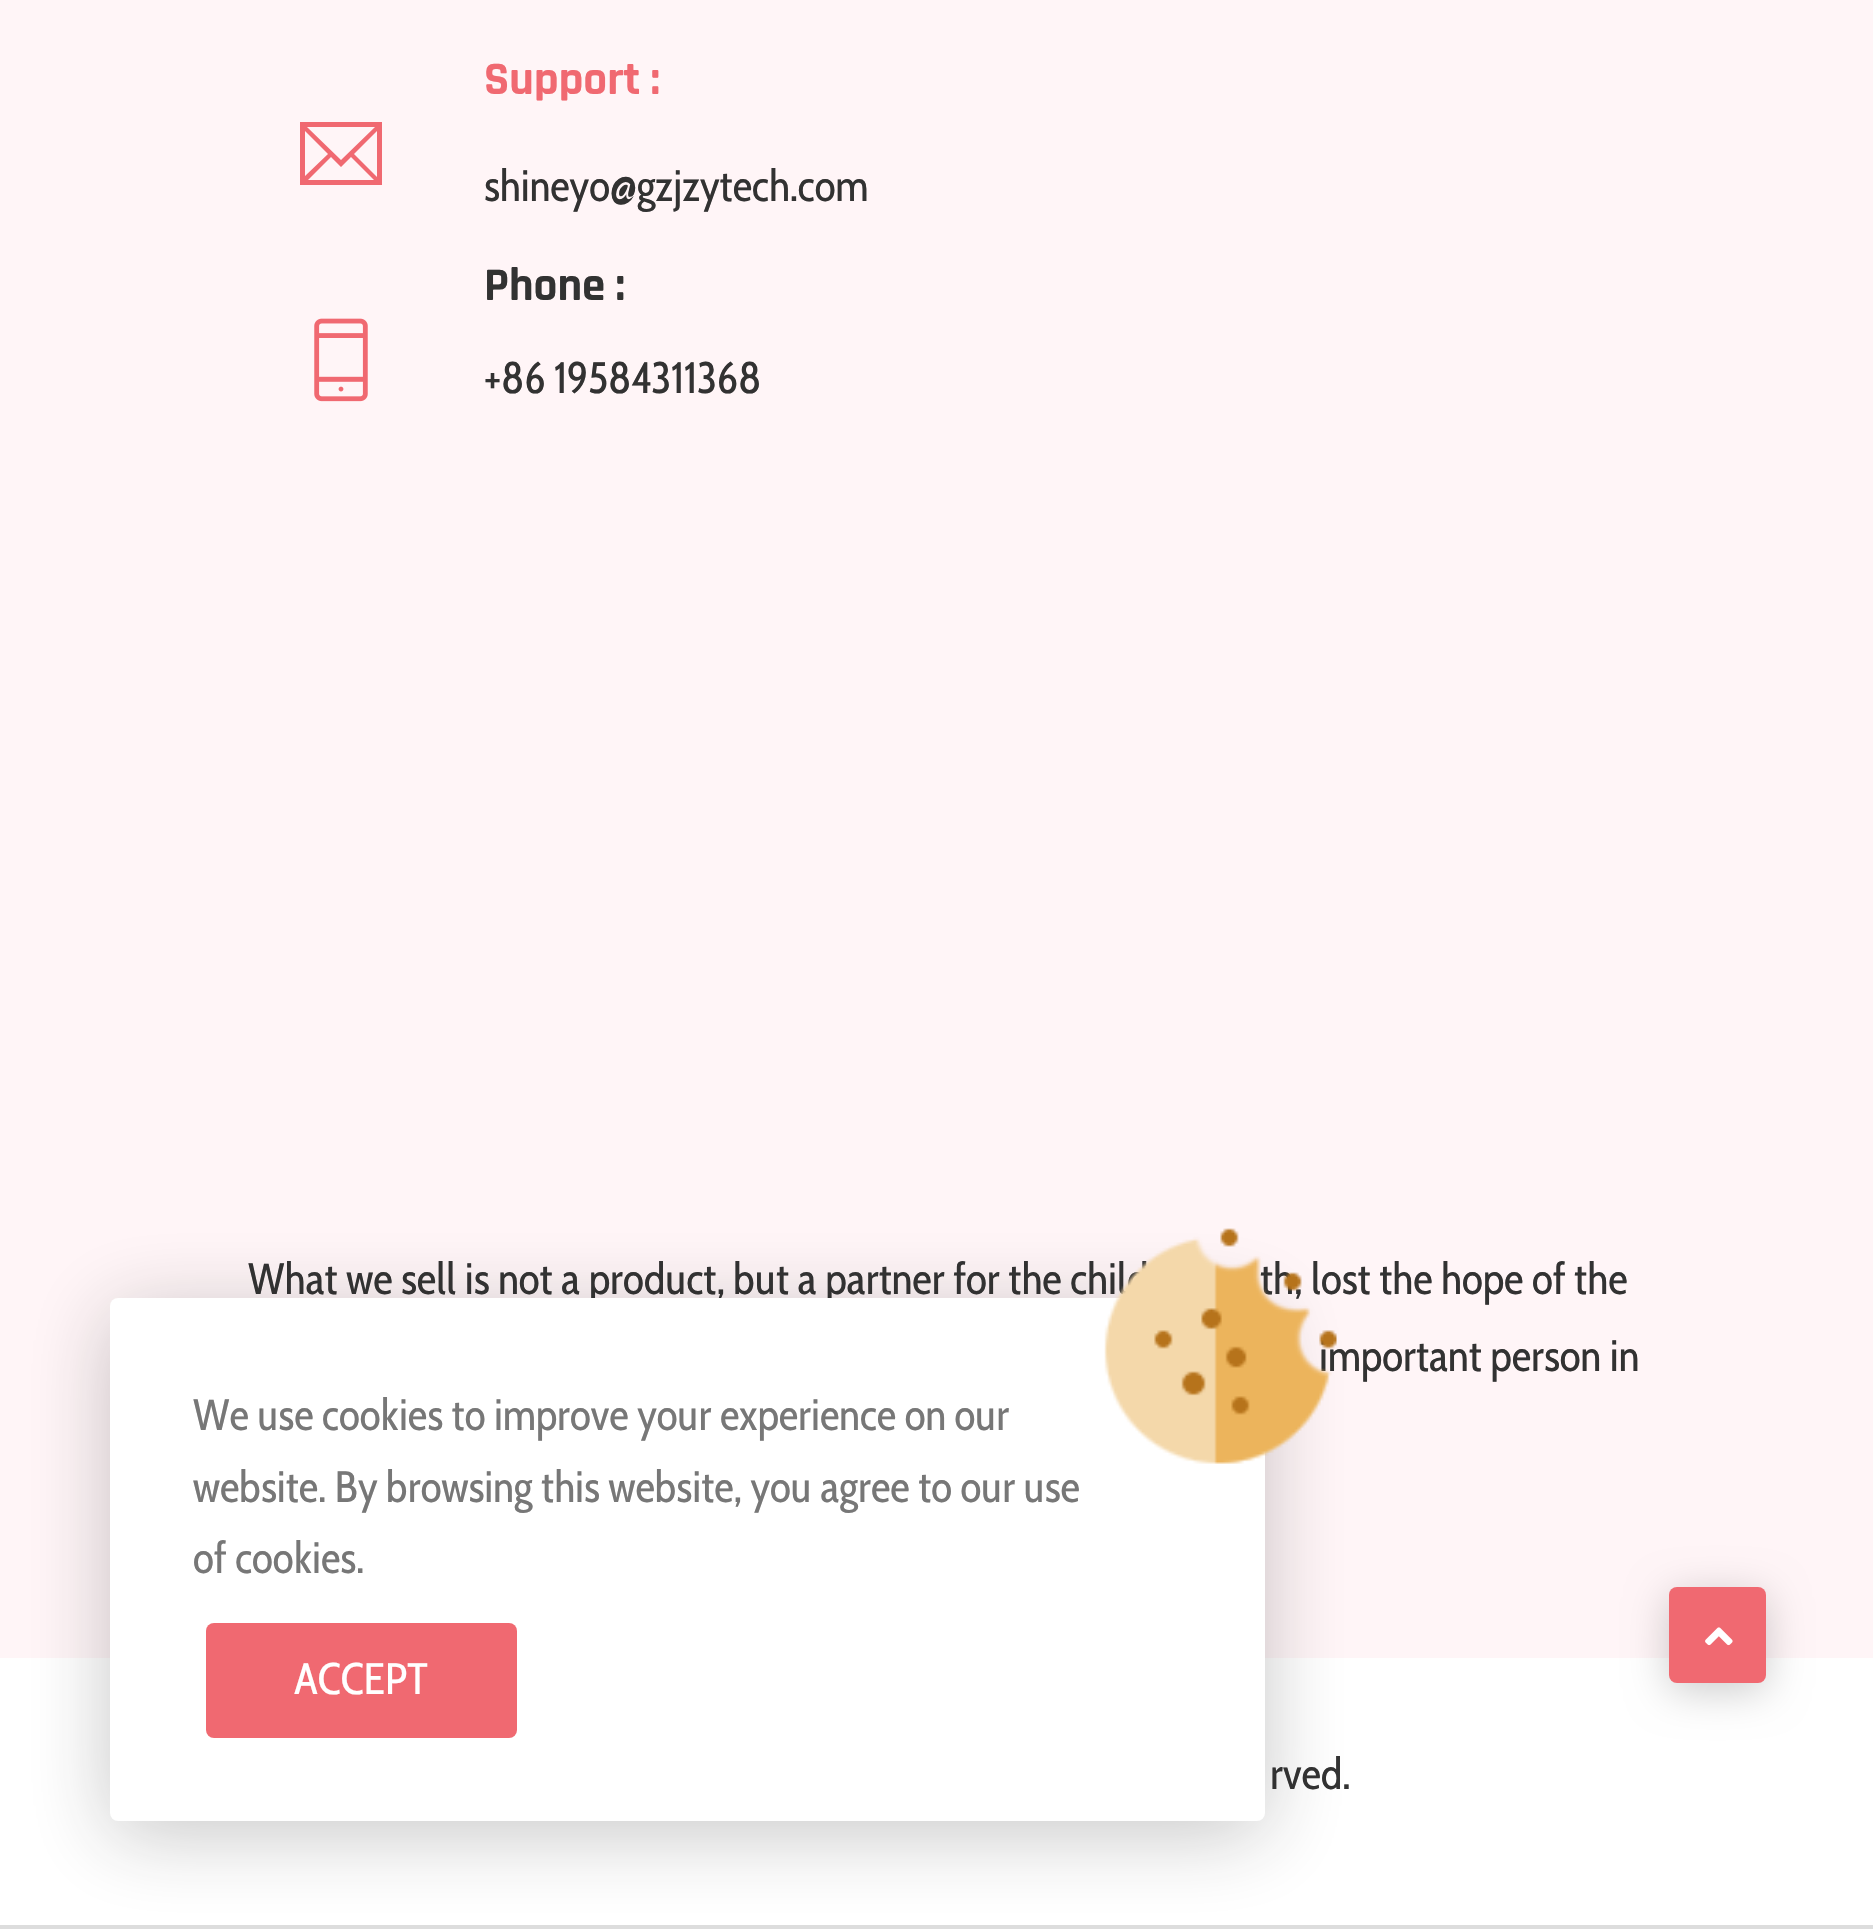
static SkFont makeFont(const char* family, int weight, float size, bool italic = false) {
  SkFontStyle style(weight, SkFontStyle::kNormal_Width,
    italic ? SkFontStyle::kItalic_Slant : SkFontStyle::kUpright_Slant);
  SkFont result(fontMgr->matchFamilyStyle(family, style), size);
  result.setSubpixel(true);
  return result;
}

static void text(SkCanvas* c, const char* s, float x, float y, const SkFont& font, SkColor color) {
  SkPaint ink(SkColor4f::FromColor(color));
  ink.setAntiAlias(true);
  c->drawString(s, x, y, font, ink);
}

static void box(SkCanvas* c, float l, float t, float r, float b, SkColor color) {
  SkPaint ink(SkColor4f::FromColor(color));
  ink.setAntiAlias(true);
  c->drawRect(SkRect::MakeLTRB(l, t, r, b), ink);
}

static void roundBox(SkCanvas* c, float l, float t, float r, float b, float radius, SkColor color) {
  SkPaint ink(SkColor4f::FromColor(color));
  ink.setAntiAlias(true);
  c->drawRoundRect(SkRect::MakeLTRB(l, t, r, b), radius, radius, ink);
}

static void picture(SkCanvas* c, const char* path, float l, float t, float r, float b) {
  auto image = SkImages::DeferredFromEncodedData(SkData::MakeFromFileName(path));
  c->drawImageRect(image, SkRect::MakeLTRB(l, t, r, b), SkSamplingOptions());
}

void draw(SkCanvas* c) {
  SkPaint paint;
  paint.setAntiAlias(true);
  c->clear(0xfffff5f7);
  paint.setColor(0xfff06971);
  c->drawPath(SkPathBuilder().moveTo(300, 122).lineTo(300, 185).lineTo(382, 185).lineTo(382, 122).close().moveTo(341, 160).lineTo(307, 127).lineTo(375, 127).close().moveTo(328, 154).lineTo(305, 176).lineTo(305, 131).close().moveTo(331, 157).lineTo(341, 167).lineTo(351, 157).lineTo(374, 180).lineTo(308, 180).close().moveTo(354, 154).lineTo(377, 131).lineTo(377, 177).close().detach(), paint);
  SkFont face1 = makeFont("Rajdhani", 700, 47);
  text(c, "Support :", 484, 94, face1, 0xfff06971);
  SkFont face2 = makeFont("Cabin Condensed", 400, 44);
  text(c, "shineyo@gzjzytech.com", 484, 201, face2, 0xff323232);
  picture(c, "img_01.png", 314, 318, 368, 402);
  text(c, "Phone :", 484, 300, face1, 0xff323232);
  text(c, "+86 19584311368", 484, 393, face2, 0xff323232);
  text(c, "What we sell is not a product, but a partner for the child", 248, 1294, face2, 0xff323232);
  text(c, "th, lost the hope of the", 1260, 1294, face2, 0xff323232);
  text(c, "important person in", 1319, 1371, face2, 0xff323232);
  box(c, 0, 1658, 1873, 1925, 0xffffffff);
  text(c, "rved.", 1270, 1789, face2, 0xff323232);
  paint.setColor(0x33000000);
  paint.setMaskFilter(SkMaskFilter::MakeBlur(kNormal_SkBlurStyle, 20.5f));
  c->drawRoundRect(SkRect::MakeLTRB(1669, 1595, 1766, 1691), 8, 8, paint);
  paint.setMaskFilter(nullptr);
  roundBox(c, 1669, 1587, 1766, 1683, 8, 0xfff06971);
  picture(c, "img_02.png", 1705, 1627, 1733, 1646);
  box(c, 0, 1925, 1873, 1929, 0xffdddddd);
  paint.setColor(0x40202020);
  paint.setMaskFilter(SkMaskFilter::MakeBlur(kNormal_SkBlurStyle, 41));
  c->drawRoundRect(SkRect::MakeLTRB(110, 1312, 1265, 1834), 8, 8, paint);
  paint.setMaskFilter(nullptr);
  roundBox(c, 110, 1298, 1265, 1821, 8, 0xffffffff);
  picture(c, "img_03.png", 1104, 1228, 1337, 1464);
  text(c, "We use cookies to improve your experience on our", 193, 1430, face2, 0xff777777);
  text(c, "website. By browsing this website, you agree to our use", 193, 1502, face2, 0xff777777);
  text(c, "of cookies.", 193, 1573, face2, 0xff777777);
  roundBox(c, 206, 1623, 517, 1738, 8, 0xfff06971);
  text(c, "ACCEPT", 294, 1694, face2, 0xffffffff);
}
